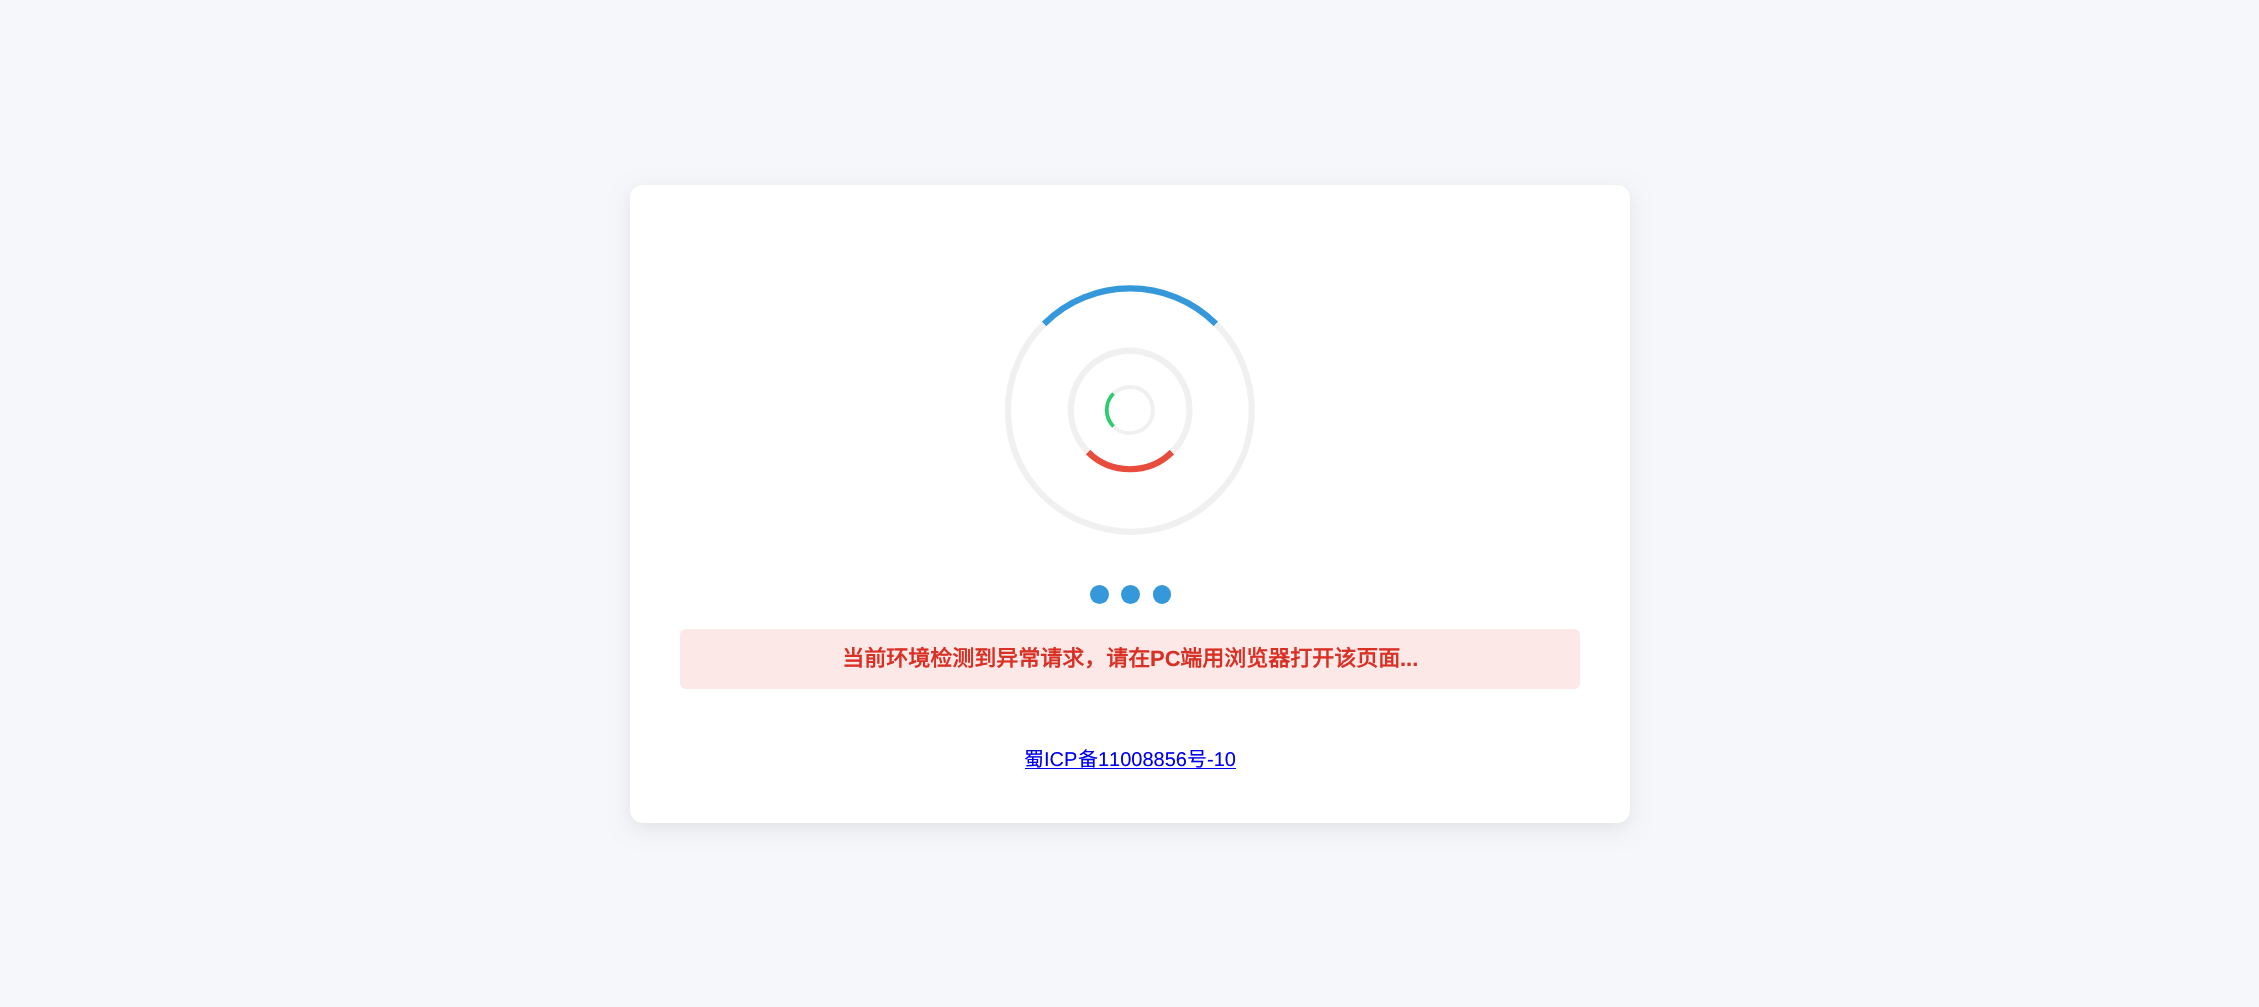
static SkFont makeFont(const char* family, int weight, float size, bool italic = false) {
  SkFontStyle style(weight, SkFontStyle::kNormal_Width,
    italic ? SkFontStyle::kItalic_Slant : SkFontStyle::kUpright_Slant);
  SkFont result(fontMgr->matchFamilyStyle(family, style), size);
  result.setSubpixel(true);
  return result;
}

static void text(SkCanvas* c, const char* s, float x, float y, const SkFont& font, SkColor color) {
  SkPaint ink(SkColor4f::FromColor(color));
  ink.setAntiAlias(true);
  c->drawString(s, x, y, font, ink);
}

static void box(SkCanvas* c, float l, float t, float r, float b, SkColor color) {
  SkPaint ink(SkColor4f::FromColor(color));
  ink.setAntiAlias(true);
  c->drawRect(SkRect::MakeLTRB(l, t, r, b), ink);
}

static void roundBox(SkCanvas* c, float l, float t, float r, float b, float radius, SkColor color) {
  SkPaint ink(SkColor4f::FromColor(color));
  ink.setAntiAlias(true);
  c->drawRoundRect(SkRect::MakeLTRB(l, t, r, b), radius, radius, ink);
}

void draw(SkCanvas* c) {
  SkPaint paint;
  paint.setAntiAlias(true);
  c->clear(0xfff5f7fa);
  paint.setColor(0x14000000);
  paint.setMaskFilter(SkMaskFilter::MakeBlur(kNormal_SkBlurStyle, 9.5f));
  c->drawRoundRect(SkRect::MakeLTRB(630, 191, 1630, 829), 13, 13, paint);
  paint.setMaskFilter(nullptr);
  roundBox(c, 630, 185, 1630, 823, 13, 0xffffffff);
  paint.setStyle(SkPaint::kStroke_Style);
  paint.setStrokeWidth(6.2f);
  paint.setColor(0xff3498db);
  c->drawPath(SkPathBuilder().moveTo(1044, 324).cubicTo(1091, 276.5f, 1169, 276.5f, 1216, 324).detach(), paint);
  paint.setColor(0xfff0f0f0);
  c->drawPath(SkPathBuilder().moveTo(1216, 324).cubicTo(1244.5f, 352.5f, 1257.5f, 394.5f, 1249.5f, 434).cubicTo(1245, 457.5f, 1233, 479, 1216, 496).cubicTo(1139.5f, 572.5f, 1008, 518, 1008, 410).cubicTo(1008, 378, 1021, 346.5f, 1044, 324).detach(), paint);
  paint.setColor(0xffe74c3c);
  c->drawPath(SkPathBuilder().moveTo(1172, 452).cubicTo(1149, 475, 1111, 475, 1088, 452).detach(), paint);
  paint.setColor(0xfff0f0f0);
  c->drawPath(SkPathBuilder().moveTo(1088, 452).cubicTo(1074, 438, 1068, 417.5f, 1072, 398.5f).cubicTo(1074, 387, 1080, 376.5f, 1088, 368).cubicTo(1125, 331, 1189.5f, 357.5f, 1189.5f, 410).cubicTo(1189.5f, 425.5f, 1183, 441, 1172, 452).detach(), paint);
  paint.setStrokeWidth(3.8f);
  c->drawPath(SkPathBuilder().moveTo(1113.5f, 393.5f).cubicTo(1118, 389.5f, 1124, 387, 1130, 387).cubicTo(1157.5f, 387, 1161.5f, 427.5f, 1134.5f, 432.5f).cubicTo(1127, 434, 1119, 432, 1113.5f, 426.5f).detach(), paint);
  paint.setColor(0xff2ecc71);
  c->drawPath(SkPathBuilder().moveTo(1113.5f, 426.5f).cubicTo(1104.5f, 417.5f, 1104.5f, 402.5f, 1113.5f, 393.5f).detach(), paint);
  paint.setStyle(SkPaint::kFill_Style);
  paint.setColor(0xff3498db);
  c->drawCircle(1099.5f, 594.5f, 9.5f, paint);
  c->drawCircle(1130.5f, 594.5f, 9.5f, paint);
  roundBox(c, 1153, 585, 1171, 604, 9, 0xff3498db);
  roundBox(c, 680, 629, 1580, 689, 6, 0xfffce8e6);
  SkFont face1 = makeFont("Noto Sans CJK SC", 700, 22);
  text(c, "当前环境检测到异常请求，请在", 842, 666, face1, 0xffd93025);
  SkFont face2 = makeFont("Liberation Sans", 700, 22);
  text(c, "PC", 1150, 666, face2, 0xffd93025);
  text(c, "端用浏览器打开该页面", 1180, 666, face1, 0xffd93025);
  text(c, "...", 1400, 666, face2, 0xffd93025);
  SkFont face3 = makeFont("Noto Sans CJK SC", 400, 20);
  text(c, "蜀", 1024, 766, face3, 0xff0000ee);
  SkFont face4 = makeFont("Liberation Sans", 400, 20);
  text(c, "ICP", 1044, 766, face4, 0xff0000ee);
  box(c, 1025, 768, 1236, 769, 0xff0000ee);
  text(c, "备", 1078, 766, face3, 0xff0000ee);
  text(c, "11008856", 1098, 766, face4, 0xff0000ee);
  text(c, "号", 1187, 766, face3, 0xff0000ee);
  text(c, "-10", 1207, 766, face4, 0xff0000ee);
}
